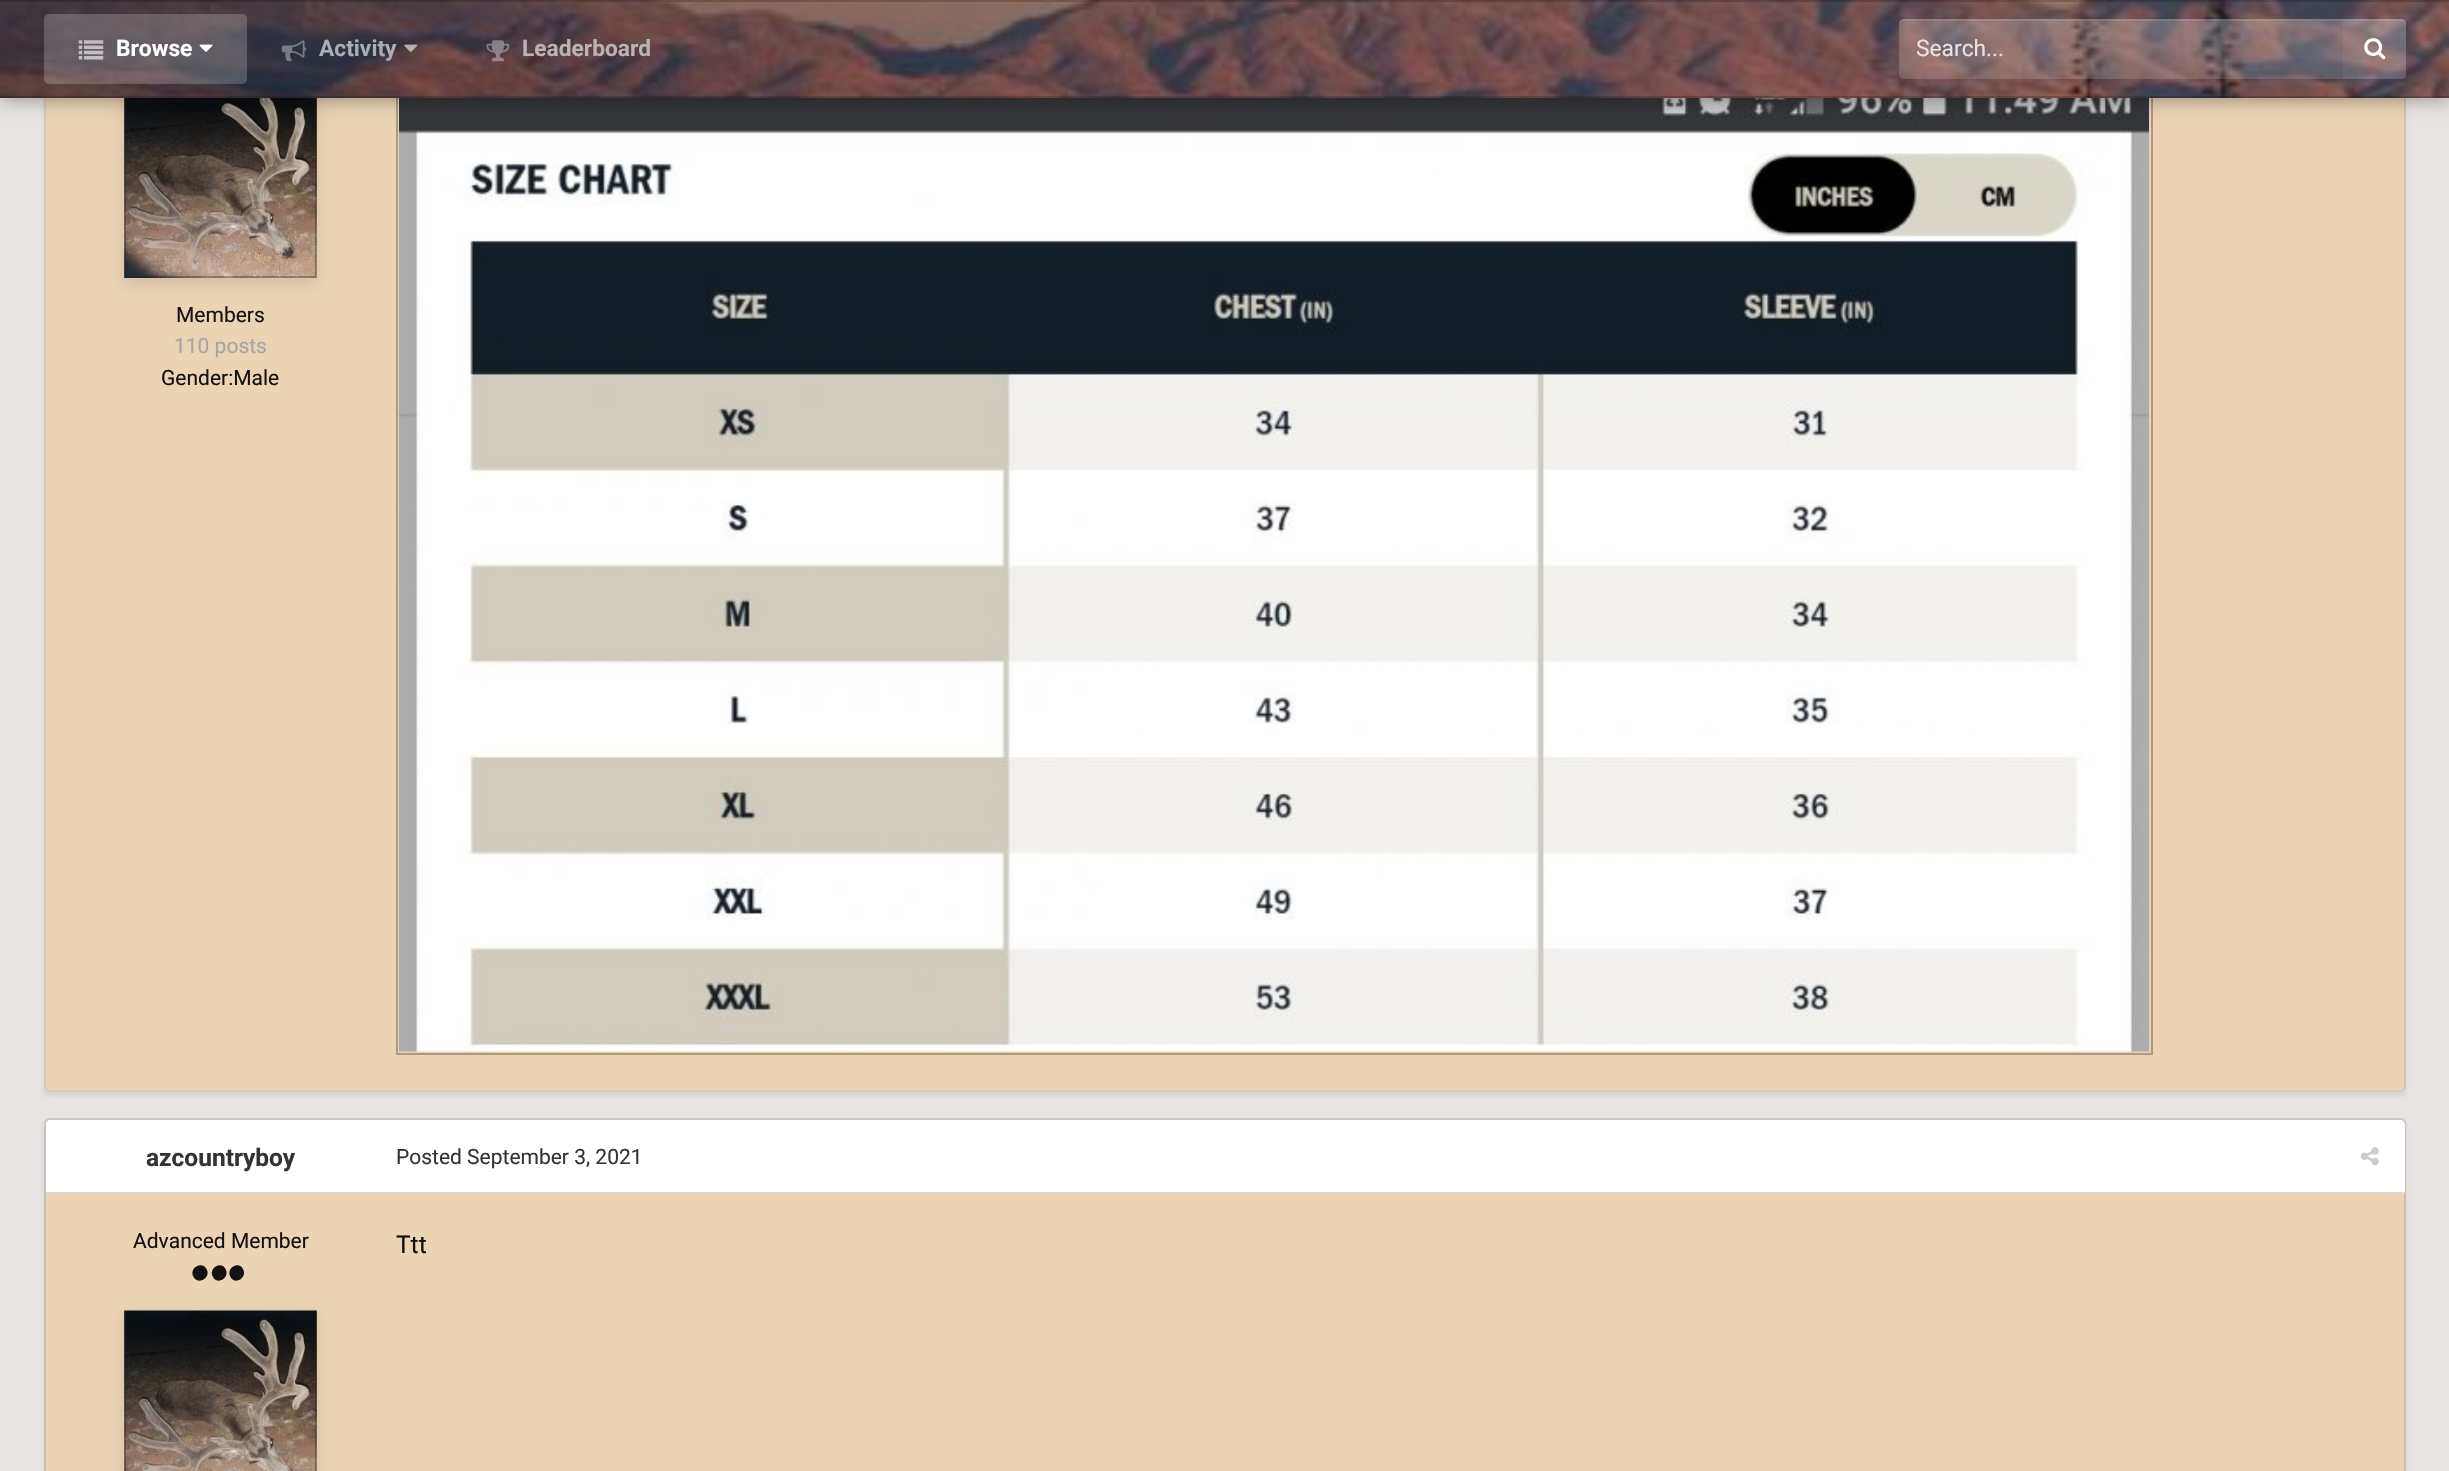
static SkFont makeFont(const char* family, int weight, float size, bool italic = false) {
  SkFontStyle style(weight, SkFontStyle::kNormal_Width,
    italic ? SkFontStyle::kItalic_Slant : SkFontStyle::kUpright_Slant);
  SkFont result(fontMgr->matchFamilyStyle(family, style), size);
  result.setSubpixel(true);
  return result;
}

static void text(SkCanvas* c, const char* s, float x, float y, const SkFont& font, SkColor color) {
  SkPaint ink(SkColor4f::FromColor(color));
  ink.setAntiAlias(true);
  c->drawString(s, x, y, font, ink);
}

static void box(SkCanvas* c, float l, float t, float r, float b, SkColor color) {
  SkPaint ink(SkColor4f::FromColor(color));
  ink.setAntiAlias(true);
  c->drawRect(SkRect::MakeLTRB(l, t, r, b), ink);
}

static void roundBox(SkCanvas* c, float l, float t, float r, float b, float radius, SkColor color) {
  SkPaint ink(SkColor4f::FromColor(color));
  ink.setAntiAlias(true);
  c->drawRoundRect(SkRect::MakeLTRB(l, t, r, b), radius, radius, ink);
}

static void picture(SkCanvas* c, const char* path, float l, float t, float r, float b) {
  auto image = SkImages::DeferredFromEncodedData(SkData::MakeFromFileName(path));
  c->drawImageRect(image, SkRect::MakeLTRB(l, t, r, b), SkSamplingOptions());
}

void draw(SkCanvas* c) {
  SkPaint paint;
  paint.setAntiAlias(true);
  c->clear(0xffe9e4e4);
  c->save();
  c->clipPath(SkPathBuilder(SkPathFillType::kEvenOdd).moveTo(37, 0).lineTo(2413, 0).lineTo(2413, 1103).lineTo(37, 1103).close().moveTo(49, -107).lineTo(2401, -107).cubicTo(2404, -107, 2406, -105, 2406, -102).lineTo(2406, 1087).cubicTo(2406, 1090, 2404, 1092, 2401, 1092).lineTo(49, 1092).cubicTo(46, 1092, 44, 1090, 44, 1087).lineTo(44, -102).cubicTo(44, -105, 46, -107, 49, -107).close().detach(), true);
  paint.setColor(0x14000000);
  paint.setMaskFilter(SkMaskFilter::MakeBlur(kNormal_SkBlurStyle, 2));
  c->drawRoundRect(SkRect::MakeLTRB(44, -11, 2406, 1096), 5, 5, paint);
  paint.setMaskFilter(nullptr);
  c->restore();
  roundBox(c, 46, -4, 2405, 1090, 4, 0xffebd3b4);
  paint.setStyle(SkPaint::kStroke_Style);
  paint.setStrokeWidth(2);
  paint.setColor(0x1c000000);
  c->drawRoundRect(SkRect::MakeLTRB(45, -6, 2405, 1091), 4, 4, paint);
  picture(c, "img_08.png", 124, 98, 317, 278);
  c->save();
  c->clipPath(SkPathBuilder(SkPathFillType::kEvenOdd).moveTo(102, 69).lineTo(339, 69).lineTo(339, 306).lineTo(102, 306).close().moveTo(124, 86).lineTo(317, 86).lineTo(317, 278).lineTo(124, 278).close().detach(), true);
  paint.setStyle(SkPaint::kFill_Style);
  paint.setColor(0x1a000000);
  paint.setMaskFilter(SkMaskFilter::MakeBlur(kNormal_SkBlurStyle, 7));
  c->drawRect(SkRect::MakeLTRB(124, 91, 317, 284), paint);
  paint.setMaskFilter(nullptr);
  c->restore();
  paint.setStyle(SkPaint::kStroke_Style);
  paint.setColor(0x4d121212);
  c->drawRect(SkRect::MakeLTRB(125, 87, 316, 277), paint);
  paint.setColor(0xffaa9983);
  c->drawRect(SkRect::MakeLTRB(397, 64, 2152, 1054), paint);
  picture(c, "img_09.png", 399, 98, 2149, 1052);
  paint.setStyle(SkPaint::kFill_Style);
  paint.setColor(0x59000000);
  paint.setMaskFilter(SkMaskFilter::MakeBlur(kNormal_SkBlurStyle, 9));
  c->drawRect(SkRect::MakeLTRB(0, -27, 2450, 100), paint);
  paint.setMaskFilter(nullptr);
  picture(c, "img_01.png", 0, 0, 2449, 98);
  box(c, 0, 0, 2449, 2, 0x33000000);
  box(c, 0, 96, 2449, 98, 0x33000000);
  roundBox(c, 44, 14, 247, 84, 5, 0x33ffffff);
  picture(c, "img_02.png", 78, 40, 104, 60);
  SkFont face1 = makeFont("Roboto", 700, 22.75f);
  text(c, "Browse", 116, 56, face1, 0xffffffff);
  picture(c, "img_03.png", 199, 44, 213, 52);
  picture(c, "img_04.png", 281, 40, 307, 62);
  text(c, "Activity", 319, 56, face1, 0xffabadb2);
  picture(c, "img_05.png", 404, 44, 418, 52);
  picture(c, "img_06.png", 486, 40, 510, 62);
  text(c, "Leaderboard", 522, 56, face1, 0xffbbb2b3);
  roundBox(c, 1899, 19, 2406, 79, 5, 0x26ffffff);
  {
    const SkColor colors[] = {0x14ffffff, 0x00ffffff};
    const float stops[] = {0, 1};
    const SkPoint ends[] = {{2153, 19}, {2153, 79}};
    paint.setShader(SkGradientShader::MakeLinear(ends, colors, stops, 2, SkTileMode::kClamp));
    paint.setAlpha(255);
  }
  c->drawRoundRect(SkRect::MakeLTRB(1899, 19, 2406, 79), 5, 5, paint);
  paint.setShader(nullptr);
  paint.setColor(0x1affffff);
  c->drawPath(SkPathBuilder().moveTo(1904, 21).lineTo(2401, 21).cubicTo(2404, 21, 2406, 23, 2406, 26).lineTo(2406, 24).cubicTo(2406, 21, 2404, 19, 2401, 19).lineTo(1904, 19).cubicTo(1901, 19, 1899, 21, 1899, 24).lineTo(1899, 26).cubicTo(1899, 23, 1901, 21, 1904, 21).close().detach(), paint);
  SkFont face2 = makeFont("Roboto", 400, 22.75f);
  text(c, "Search...", 1916, 56, face2, 0xffe6e2e2);
  box(c, 2343, 19, 2406, 79, 0x0dffffff);
  picture(c, "img_07.png", 2364, 38, 2386, 60);
  SkFont face3 = makeFont("Roboto", 400, 21);
  text(c, "Members", 176, 322, face3, 0xff121212);
  text(c, "110 posts", 174, 353, face3, 0xffa4a4a4);
  text(c, "Gender:Male", 161, 385, face3, 0xff121212);
  paint.setColor(0x14000000);
  paint.setMaskFilter(SkMaskFilter::MakeBlur(kNormal_SkBlurStyle, 2));
  c->drawRoundRect(SkRect::MakeLTRB(44, 1122, 2406, 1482), 5, 5, paint);
  paint.setMaskFilter(nullptr);
  roundBox(c, 46, 1120, 2405, 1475, 4, 0xffebd3b4);
  paint.setStyle(SkPaint::kStroke_Style);
  paint.setColor(0x1c000000);
  c->drawRoundRect(SkRect::MakeLTRB(45, 1119, 2405, 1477), 4, 4, paint);
  paint.setStyle(SkPaint::kFill_Style);
  paint.setColor(0xffffffff);
  c->drawPath(SkPathBuilder().moveTo(51, 1120).lineTo(2400, 1120).cubicTo(2403, 1120, 2405, 1122, 2405, 1125).lineTo(2405, 1194).lineTo(46, 1194).lineTo(46, 1125).cubicTo(46, 1122, 48, 1120, 51, 1120).close().detach(), paint);
  box(c, 46, 1192, 2405, 1194, 0xffd9d9d9);
  SkFont face4 = makeFont("Roboto", 700, 24.5f);
  text(c, "azcountryboy", 146, 1166, face4, 0xff333333);
  text(c, "Advanced Member", 133, 1248, face3, 0xff121212);
  paint.setColor(0xff121212);
  c->drawPath(SkPathBuilder().moveTo(206.5f, 1269).cubicTo(211.5f, 1277.5f, 198.5f, 1285.5f, 193.5f, 1277).cubicTo(188.5f, 1268.5f, 201.5f, 1260.5f, 206.5f, 1269).close().moveTo(225.5f, 1269).cubicTo(230.5f, 1277.5f, 217.5f, 1285.5f, 213, 1277).cubicTo(208, 1268.5f, 221, 1260.5f, 225.5f, 1269).close().moveTo(243, 1269).cubicTo(248, 1277.5f, 235, 1285.5f, 230.5f, 1277).cubicTo(225.5f, 1268.5f, 238.5f, 1260.5f, 243, 1269).close().detach(), paint);
  picture(c, "img_10.png", 124, 1310, 317, 1471);
  c->save();
  c->clipPath(SkPathBuilder(SkPathFillType::kEvenOdd).moveTo(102, 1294).lineTo(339, 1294).lineTo(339, 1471).lineTo(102, 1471).close().moveTo(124, 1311).lineTo(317, 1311).lineTo(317, 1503).lineTo(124, 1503).close().detach(), true);
  paint.setColor(0x1a000000);
  paint.setMaskFilter(SkMaskFilter::MakeBlur(kNormal_SkBlurStyle, 7));
  c->drawRect(SkRect::MakeLTRB(124, 1316, 317, 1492), paint);
  paint.setMaskFilter(nullptr);
  c->restore();
  paint.setStyle(SkPaint::kStroke_Style);
  paint.setColor(0x4d121212);
  c->drawRect(SkRect::MakeLTRB(125, 1312, 316, 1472), paint);
  text(c, "Posted September 3, 2021", 396, 1164, face3, 0xff333333);
  picture(c, "img_11.png", 2360, 1147, 2379, 1166);
  SkFont face5 = makeFont("Roboto", 400, 24.5f);
  text(c, "Ttt", 396, 1253, face5, 0xff121212);
}
